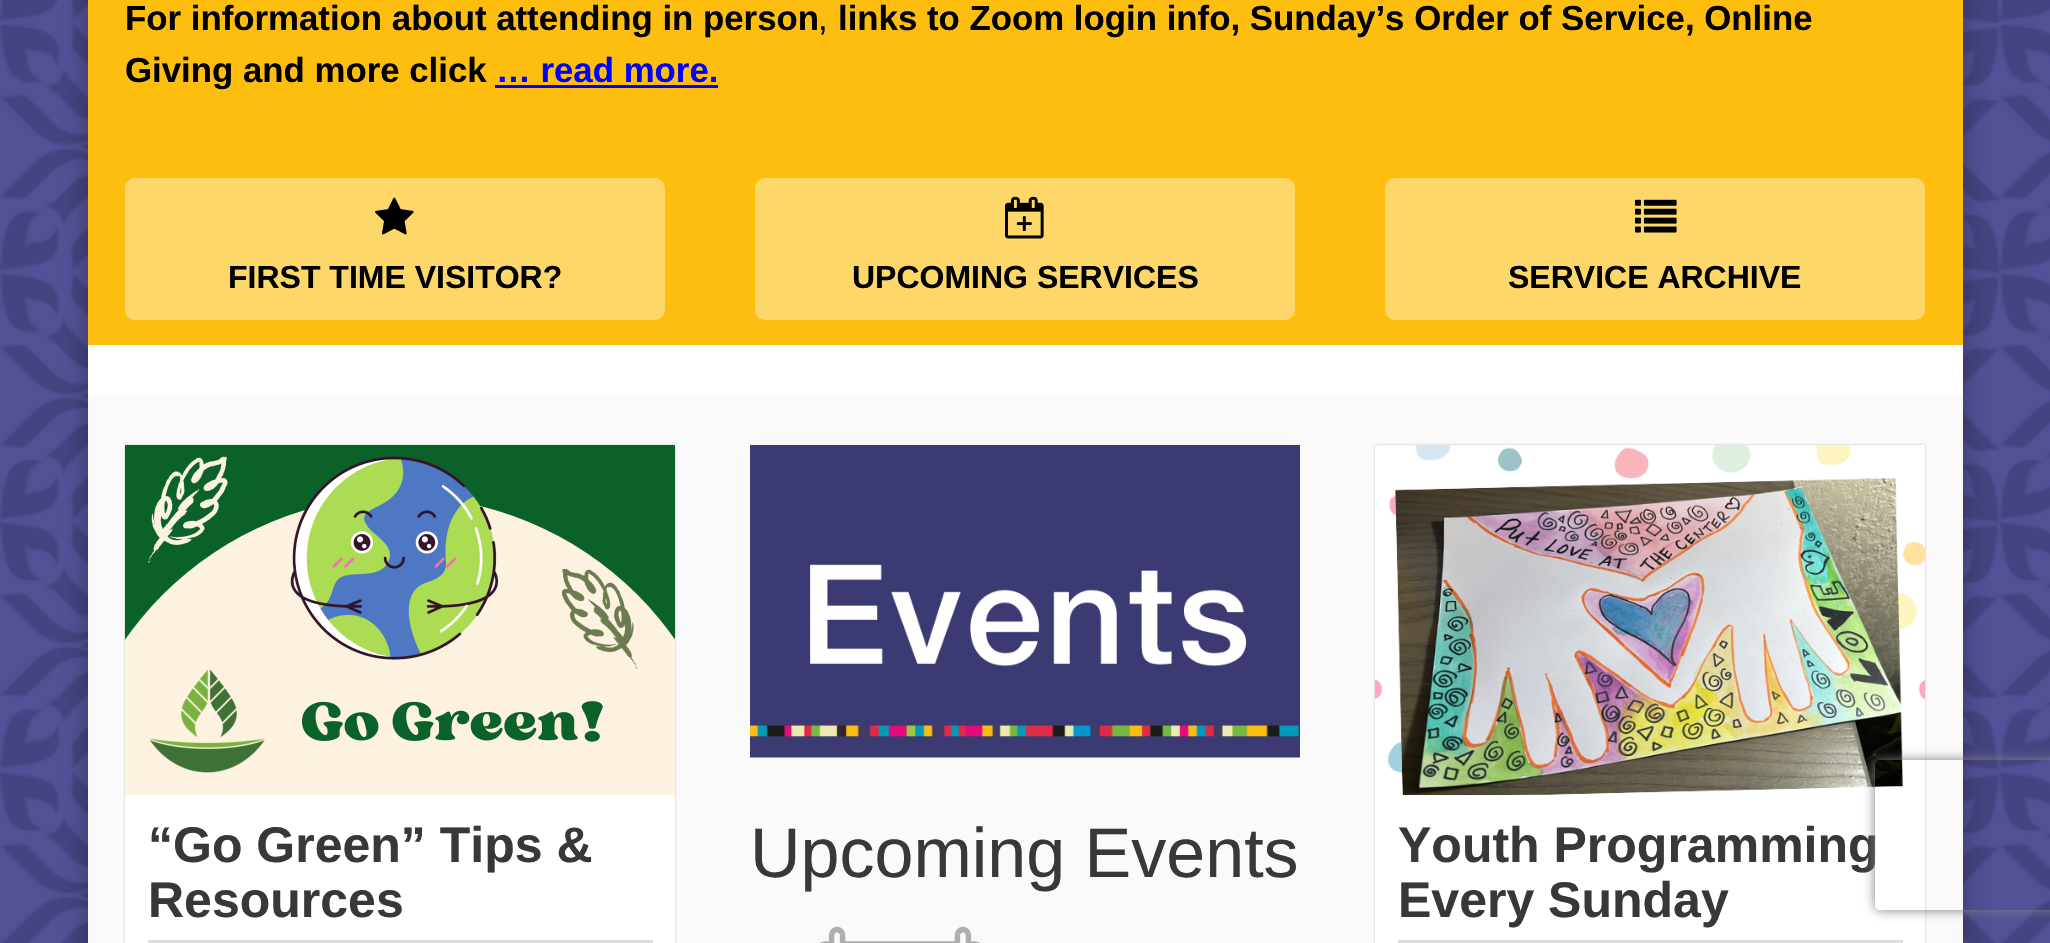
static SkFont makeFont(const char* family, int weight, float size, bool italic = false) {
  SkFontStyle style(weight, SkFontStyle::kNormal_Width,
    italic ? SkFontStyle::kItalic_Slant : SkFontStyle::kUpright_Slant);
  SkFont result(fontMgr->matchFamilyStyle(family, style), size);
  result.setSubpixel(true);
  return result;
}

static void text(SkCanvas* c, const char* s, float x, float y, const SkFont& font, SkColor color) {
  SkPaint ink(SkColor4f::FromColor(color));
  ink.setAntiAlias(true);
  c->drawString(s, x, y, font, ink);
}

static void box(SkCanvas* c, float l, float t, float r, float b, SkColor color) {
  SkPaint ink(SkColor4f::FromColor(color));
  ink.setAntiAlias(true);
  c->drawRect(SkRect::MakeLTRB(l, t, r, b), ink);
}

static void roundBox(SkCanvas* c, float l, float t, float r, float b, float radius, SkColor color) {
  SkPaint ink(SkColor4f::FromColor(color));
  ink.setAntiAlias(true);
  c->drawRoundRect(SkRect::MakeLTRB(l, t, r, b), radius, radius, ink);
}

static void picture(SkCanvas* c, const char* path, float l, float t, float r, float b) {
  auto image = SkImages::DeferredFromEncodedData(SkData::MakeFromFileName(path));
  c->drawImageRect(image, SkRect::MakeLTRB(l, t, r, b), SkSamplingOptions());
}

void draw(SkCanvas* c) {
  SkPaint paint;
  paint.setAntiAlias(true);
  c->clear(0xffffffff);
  picture(c, "img_01.png", 0, 0, 2050, 943);
  paint.setColor(0x4d000000);
  paint.setMaskFilter(SkMaskFilter::MakeBlur(kNormal_SkBlurStyle, 12.5f));
  c->drawRect(SkRect::MakeLTRB(88, -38, 1963, 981), paint);
  paint.setMaskFilter(nullptr);
  box(c, 88, 345, 1963, 395, 0xffffffff);
  box(c, 88, 0, 1963, 345, 0xfffebe10);
  SkFont face1 = makeFont("Liberation Sans", 700, 34.8f);
  text(c, "For information about attending in person", 125, 30, face1, 0xff000000);
  SkFont face2 = makeFont("Liberation Sans", 400, 34.8f);
  text(c, ",", 818, 30, face2, 0xff000000);
  text(c, "links to Zoom login info, Sunday’s Order of Service, Online", 838, 30, face1, 0xff000000);
  text(c, "Giving and more click", 125, 82, face1, 0xff000000);
  text(c, "… read more.", 496, 82, face1, 0xff0000ff);
  box(c, 495, 85, 718, 88, 0xff0000ff);
  roundBox(c, 125, 178, 665, 320, 10, 0xfffed76b);
  picture(c, "img_02.png", 375, 197, 414, 235);
  SkFont face3 = makeFont("Liberation Sans", 700, 32);
  text(c, "FIRST TIME VISITOR?", 228, 288, face3, 0xff000000);
  roundBox(c, 755, 178, 1295, 320, 10, 0xfffed76b);
  picture(c, "img_03.png", 1005, 196, 1044, 239);
  text(c, "UPCOMING SERVICES", 852, 288, face3, 0xff000000);
  roundBox(c, 1385, 178, 1925, 320, 10, 0xfffed76b);
  picture(c, "img_04.png", 1635, 199, 1677, 233);
  text(c, "SERVICE ARCHIVE", 1508, 288, face3, 0xff000000);
  box(c, 88, 395, 1963, 943, 0xfffafafa);
  paint.setColor(0xffbbbbbb);
  paint.setMaskFilter(SkMaskFilter::MakeBlur(kNormal_SkBlurStyle, 1));
  c->drawRect(SkRect::MakeLTRB(125, 445, 675, 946), paint);
  paint.setMaskFilter(nullptr);
  box(c, 125, 795, 675, 943, 0xffffffff);
  picture(c, "img_05.png", 125, 445, 675, 795);
  box(c, 148, 940, 653, 943, 0xffdedede);
  SkFont face4 = makeFont("Liberation Sans", 700, 50);
  text(c, "“Go Green” Tips &", 148, 862, face4, 0xff373839);
  text(c, "Resources", 148, 917, face4, 0xff373839);
  picture(c, "img_06.png", 750, 445, 1300, 758);
  SkFont face5 = makeFont("Liberation Sans", 400, 70);
  text(c, "Upcoming Events", 750, 877, face5, 0xff373839);
  picture(c, "img_07.png", 820, 926, 980, 943);
  paint.setMaskFilter(SkMaskFilter::MakeBlur(kNormal_SkBlurStyle, 1));
  c->drawRect(SkRect::MakeLTRB(1375, 445, 1925, 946), paint);
  paint.setMaskFilter(nullptr);
  box(c, 1375, 795, 1925, 943, 0xffffffff);
  picture(c, "img_08.png", 1375, 445, 1925, 795);
  box(c, 1398, 940, 1903, 943, 0xffdedede);
  text(c, "Youth Programming", 1398, 862, face4, 0xff373839);
  text(c, "Every Sunday", 1398, 917, face4, 0xff373839);
  c->save();
  c->clipPath(SkPathBuilder(SkPathFillType::kEvenOdd).moveTo(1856, 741).lineTo(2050, 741).lineTo(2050, 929).lineTo(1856, 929).close().moveTo(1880, 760).lineTo(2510, 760).cubicTo(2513, 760, 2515, 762, 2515, 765).lineTo(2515, 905).cubicTo(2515, 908, 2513, 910, 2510, 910).lineTo(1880, 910).cubicTo(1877, 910, 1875, 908, 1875, 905).lineTo(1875, 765).cubicTo(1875, 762, 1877, 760, 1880, 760).close().detach(), true);
  paint.setColor(0xff808080);
  paint.setMaskFilter(SkMaskFilter::MakeBlur(kNormal_SkBlurStyle, 6));
  c->drawRoundRect(SkRect::MakeLTRB(1875, 760, 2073, 910), 5, 5, paint);
  paint.setMaskFilter(nullptr);
  c->restore();
}
